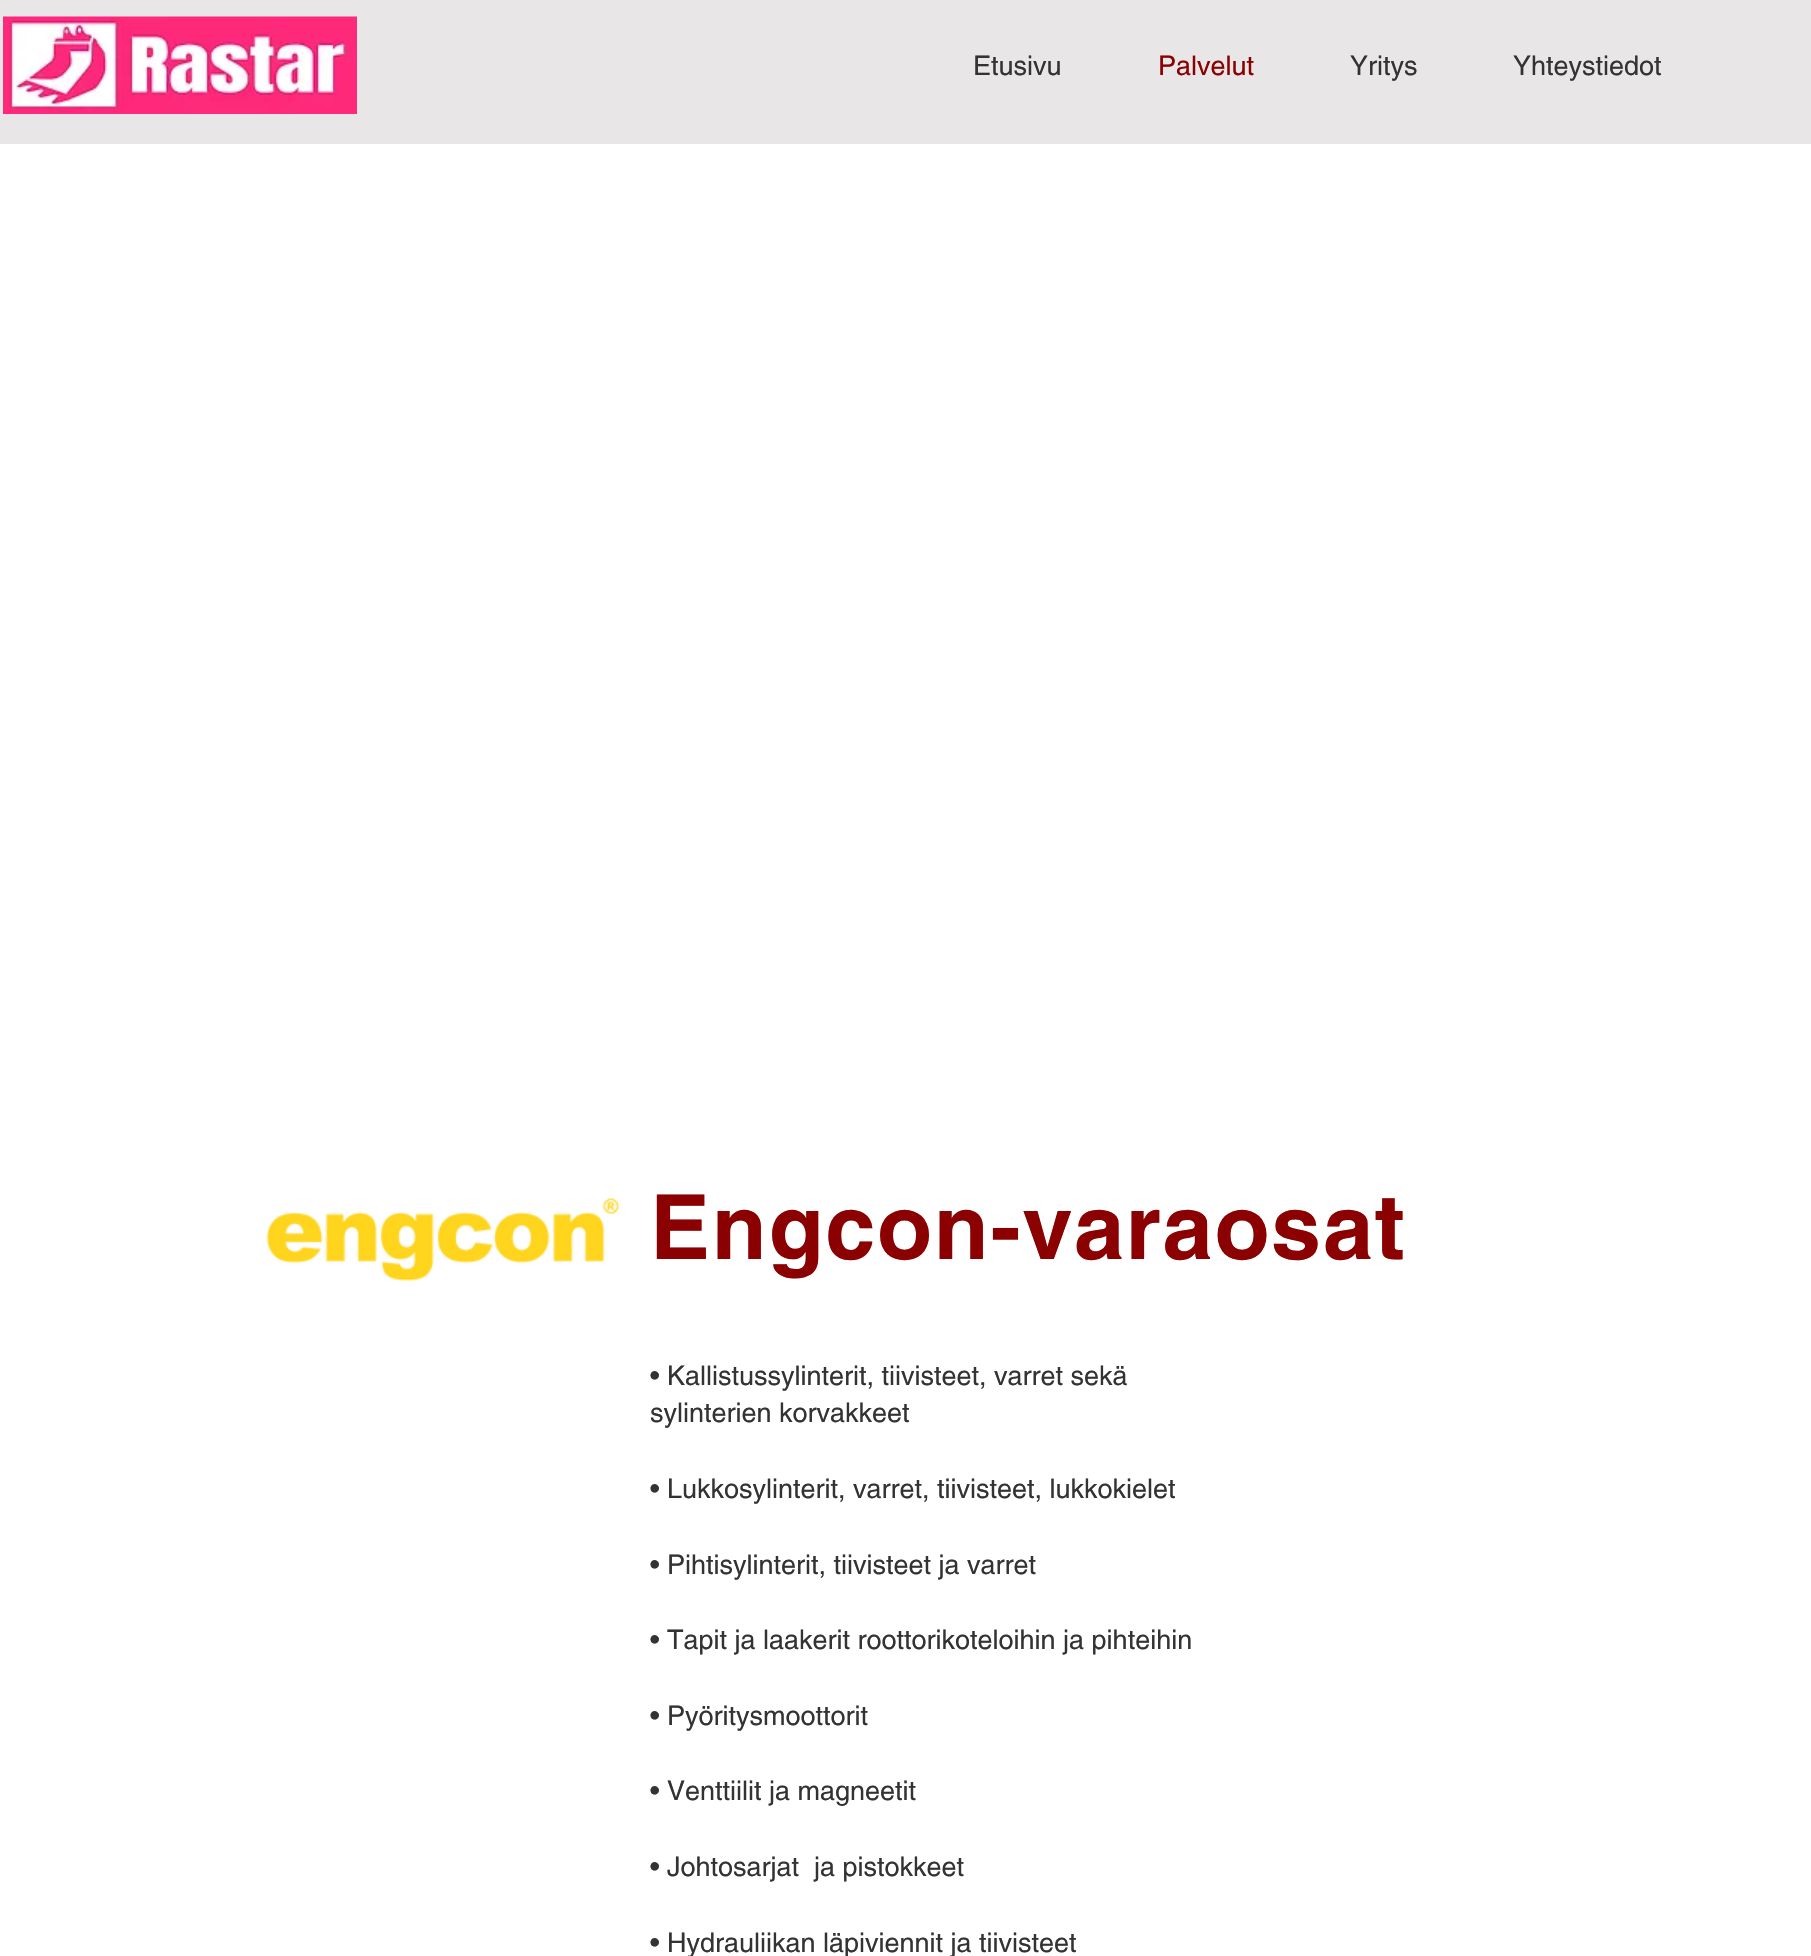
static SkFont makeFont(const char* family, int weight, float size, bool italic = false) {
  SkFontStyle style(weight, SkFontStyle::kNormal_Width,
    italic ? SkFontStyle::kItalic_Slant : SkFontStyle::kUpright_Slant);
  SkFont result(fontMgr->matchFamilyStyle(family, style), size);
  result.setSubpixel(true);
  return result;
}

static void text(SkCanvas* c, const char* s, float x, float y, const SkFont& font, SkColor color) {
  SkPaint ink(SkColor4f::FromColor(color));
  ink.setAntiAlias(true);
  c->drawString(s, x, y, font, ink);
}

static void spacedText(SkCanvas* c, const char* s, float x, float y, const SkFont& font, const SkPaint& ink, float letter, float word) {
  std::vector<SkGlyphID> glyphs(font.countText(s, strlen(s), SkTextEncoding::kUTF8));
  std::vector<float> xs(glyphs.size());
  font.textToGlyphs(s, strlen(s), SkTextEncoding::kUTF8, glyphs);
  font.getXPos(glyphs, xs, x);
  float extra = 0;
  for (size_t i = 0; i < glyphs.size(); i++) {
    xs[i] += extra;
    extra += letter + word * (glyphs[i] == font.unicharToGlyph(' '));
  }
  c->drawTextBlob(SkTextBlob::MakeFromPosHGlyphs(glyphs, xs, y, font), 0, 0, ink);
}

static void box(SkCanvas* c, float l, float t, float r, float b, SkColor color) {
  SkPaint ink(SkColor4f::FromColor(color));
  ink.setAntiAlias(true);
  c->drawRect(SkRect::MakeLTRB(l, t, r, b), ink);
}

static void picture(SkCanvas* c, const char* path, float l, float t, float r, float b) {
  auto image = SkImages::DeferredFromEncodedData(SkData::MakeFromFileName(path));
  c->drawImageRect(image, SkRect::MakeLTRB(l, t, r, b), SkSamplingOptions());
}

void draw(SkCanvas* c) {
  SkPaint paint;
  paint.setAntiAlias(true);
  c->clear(0xffffffff);
  box(c, 0, 0, 1811, 144, 0xffe8e6e6);
  picture(c, "img_01.png", 3, 16, 357, 114);
  SkFont face1 = makeFont("helvetica", 400, 27);
  text(c, "Etusivu", 973, 75, face1, 0xff333333);
  text(c, "Palvelut", 1158, 75, face1, 0xff8b0000);
  text(c, "Yritys", 1350, 75, face1, 0xff333333);
  text(c, "Yhteystiedot", 1513, 75, face1, 0xff333333);
  picture(c, "img_02.png", 266, 1198, 620, 1282);
  SkFont face2 = makeFont("helvetica", 700, 90);
  paint.setColor(0xff8b0000);
  spacedText(c, "Engcon-varaosat", 650, 1259, face2, paint, 1.75f, 0);
  text(c, "• Kallistussylinterit, tiivisteet, varret sekä", 650, 1385, face1, 0xff333333);
  text(c, "sylinterien korvakkeet", 650, 1422, face1, 0xff333333);
  text(c, "• Lukkosylinterit, varret, tiivisteet, lukkokielet", 650, 1498, face1, 0xff333333);
  text(c, "• Pihtisylinterit, tiivisteet ja varret", 650, 1574, face1, 0xff333333);
  text(c, "• Tapit ja laakerit roottorikoteloihin ja pihteihin", 650, 1649, face1, 0xff333333);
  text(c, "• Pyöritysmoottorit", 650, 1725, face1, 0xff333333);
  text(c, "• Venttiilit ja magneetit", 650, 1800, face1, 0xff333333);
  text(c, "• Johtosarjat  ja pistokkeet", 650, 1876, face1, 0xff333333);
  text(c, "• Hydrauliikan läpiviennit ja tiivisteet", 650, 1952, face1, 0xff333333);
}
